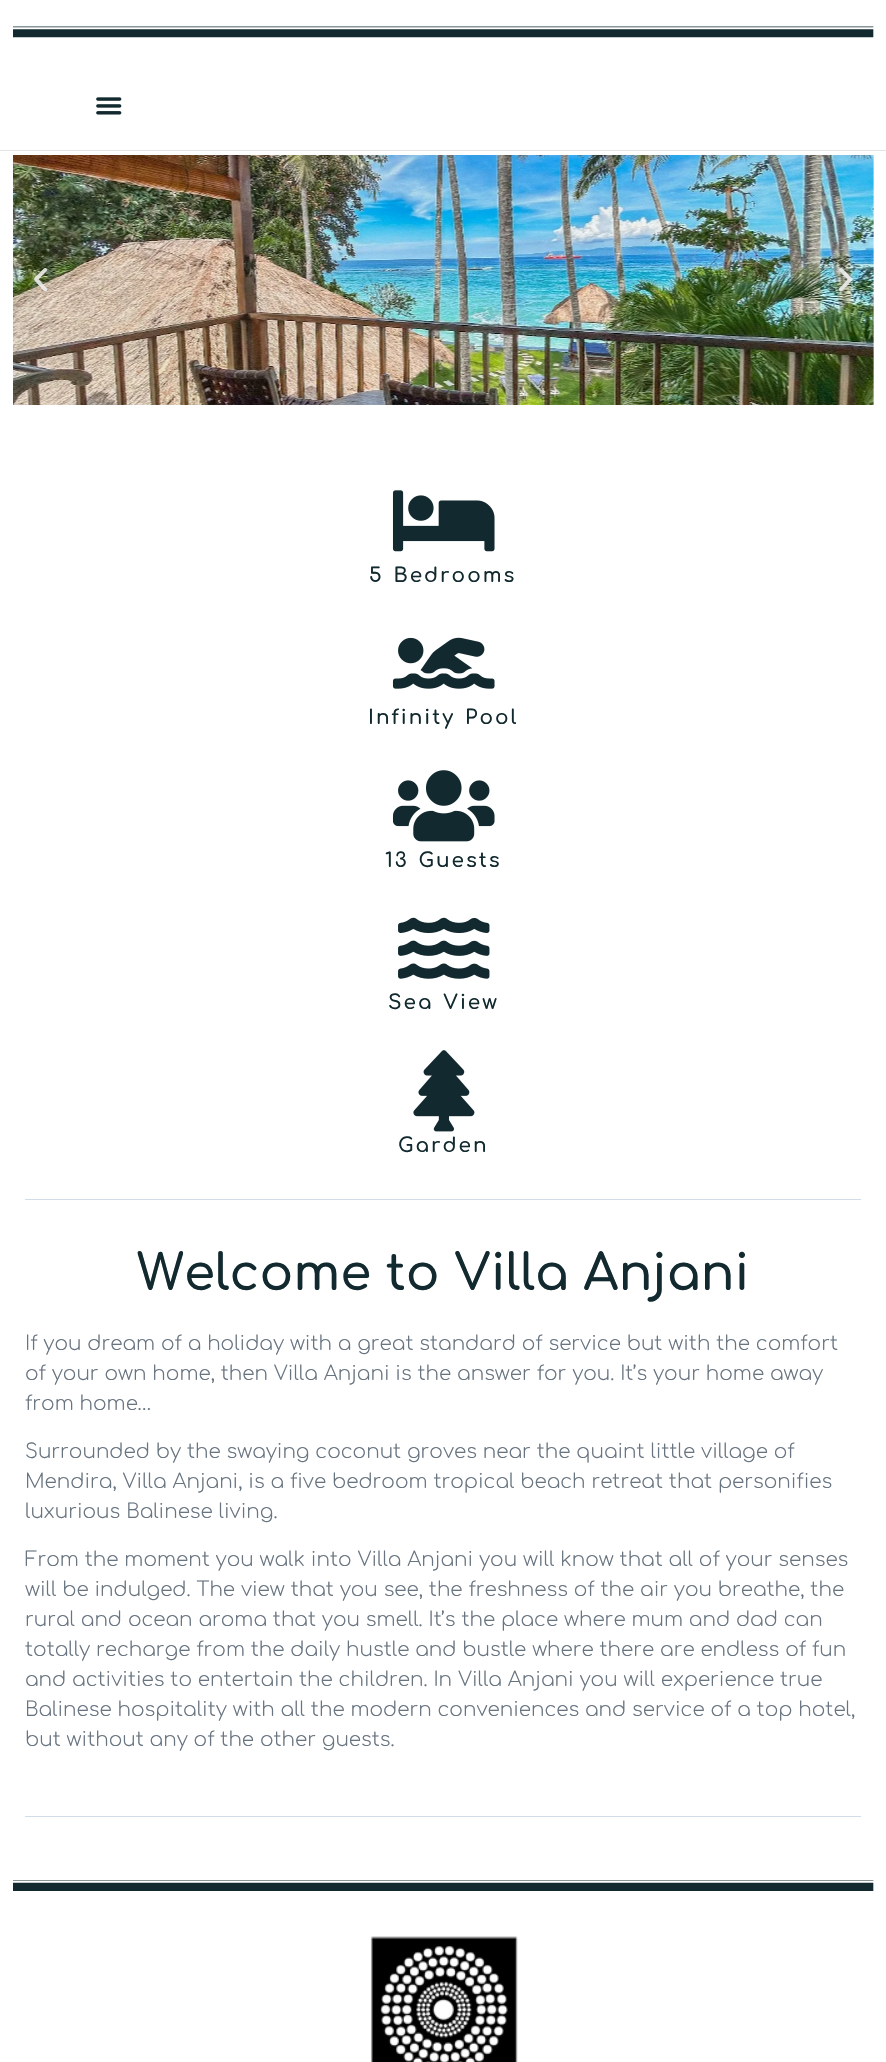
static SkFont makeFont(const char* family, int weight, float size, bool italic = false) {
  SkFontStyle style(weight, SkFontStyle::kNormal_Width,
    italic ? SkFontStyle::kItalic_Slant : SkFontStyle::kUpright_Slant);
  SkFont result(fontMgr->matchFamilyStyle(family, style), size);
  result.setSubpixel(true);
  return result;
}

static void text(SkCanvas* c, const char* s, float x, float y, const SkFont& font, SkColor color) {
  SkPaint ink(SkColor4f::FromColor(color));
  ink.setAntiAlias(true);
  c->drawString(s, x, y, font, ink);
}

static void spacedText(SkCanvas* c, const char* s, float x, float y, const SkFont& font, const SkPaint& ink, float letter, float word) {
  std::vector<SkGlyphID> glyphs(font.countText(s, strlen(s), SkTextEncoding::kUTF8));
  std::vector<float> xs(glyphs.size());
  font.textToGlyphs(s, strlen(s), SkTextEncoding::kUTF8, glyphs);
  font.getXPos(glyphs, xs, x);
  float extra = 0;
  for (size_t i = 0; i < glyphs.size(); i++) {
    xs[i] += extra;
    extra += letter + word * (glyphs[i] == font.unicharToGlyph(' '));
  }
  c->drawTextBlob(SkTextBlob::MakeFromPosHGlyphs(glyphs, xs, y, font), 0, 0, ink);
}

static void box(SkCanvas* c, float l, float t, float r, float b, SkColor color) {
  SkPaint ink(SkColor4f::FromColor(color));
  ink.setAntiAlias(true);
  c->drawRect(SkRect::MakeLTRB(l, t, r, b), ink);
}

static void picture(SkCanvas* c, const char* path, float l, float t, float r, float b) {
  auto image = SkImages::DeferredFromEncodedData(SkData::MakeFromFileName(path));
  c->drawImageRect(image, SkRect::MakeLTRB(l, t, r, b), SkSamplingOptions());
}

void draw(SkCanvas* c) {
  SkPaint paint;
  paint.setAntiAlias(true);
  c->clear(0xffffffff);
  picture(c, "img_01.png", 13, 26, 874, 38);
  box(c, 0, 150, 886, 151, 0xffe3e3e3);
  picture(c, "img_02.png", 96, 97, 122, 115);
  picture(c, "img_03.png", 13, 155, 874, 405);
  picture(c, "img_04.png", 34, 268, 48, 292);
  picture(c, "img_05.png", 839, 268, 853, 292);
  picture(c, "img_06.png", 392, 490, 495, 552);
  SkFont face1 = makeFont("Comfortaa", 600, 20);
  paint.setColor(0xff122a2f);
  spacedText(c, "5 Bedrooms", 369, 582, face1, paint, 2, 2);
  picture(c, "img_07.png", 392, 637, 495, 689);
  spacedText(c, "Infinity Pool", 368, 724, face1, paint, 2, 2);
  picture(c, "img_08.png", 392, 770, 495, 842);
  spacedText(c, "13 Guests", 385, 867, face1, paint, 2, 2);
  picture(c, "img_09.png", 398, 917, 490, 979);
  spacedText(c, "Sea View", 388, 1009, face1, paint, 2, 2);
  picture(c, "img_10.png", 413, 1050, 475, 1132);
  spacedText(c, "Garden", 398, 1152, face1, paint, 2, 0);
  box(c, 25, 1199, 861, 1200, 0xffd2dde9);
  SkFont face2 = makeFont("Comfortaa", 600, 50);
  text(c, "Welcome to Villa Anjani", 137, 1290, face2, 0xff122a2f);
  SkFont face3 = makeFont("Comfortaa", 300, 20);
  text(c, "If you dream of a holiday with a great standard of service but with the comfort", 25, 1350, face3, 0xff687480);
  text(c, "of your own home, then Villa Anjani is the answer for you. It’s your home away", 25, 1380, face3, 0xff687480);
  text(c, "from home…", 25, 1410, face3, 0xff687480);
  text(c, "Surrounded by the swaying coconut groves near the quaint little village of", 25, 1458, face3, 0xff687480);
  text(c, "Mendira, Villa Anjani, is a five bedroom tropical beach retreat that personifies", 25, 1488, face3, 0xff687480);
  text(c, "luxurious Balinese living.", 25, 1518, face3, 0xff687480);
  text(c, "From the moment you walk into Villa Anjani you will know that all of your senses", 25, 1566, face3, 0xff687480);
  text(c, "will be indulged. The view that you see, the freshness of the air you breathe, the", 25, 1596, face3, 0xff687480);
  text(c, "rural and ocean aroma that you smell. It’s the place where mum and dad can", 25, 1626, face3, 0xff687480);
  text(c, "totally recharge from the daily hustle and bustle where there are endless of fun", 25, 1656, face3, 0xff687480);
  text(c, "and activities to entertain the children. In Villa Anjani you will experience true", 25, 1686, face3, 0xff687480);
  text(c, "Balinese hospitality with all the modern conveniences and service of a top hotel,", 25, 1716, face3, 0xff687480);
  text(c, "but without any of the other guests.", 25, 1746, face3, 0xff687480);
  box(c, 25, 1816, 861, 1817, 0xffd2dde9);
  picture(c, "img_11.png", 13, 1880, 874, 1891);
  picture(c, "img_12.png", 370, 1936, 518, 2062);
}
